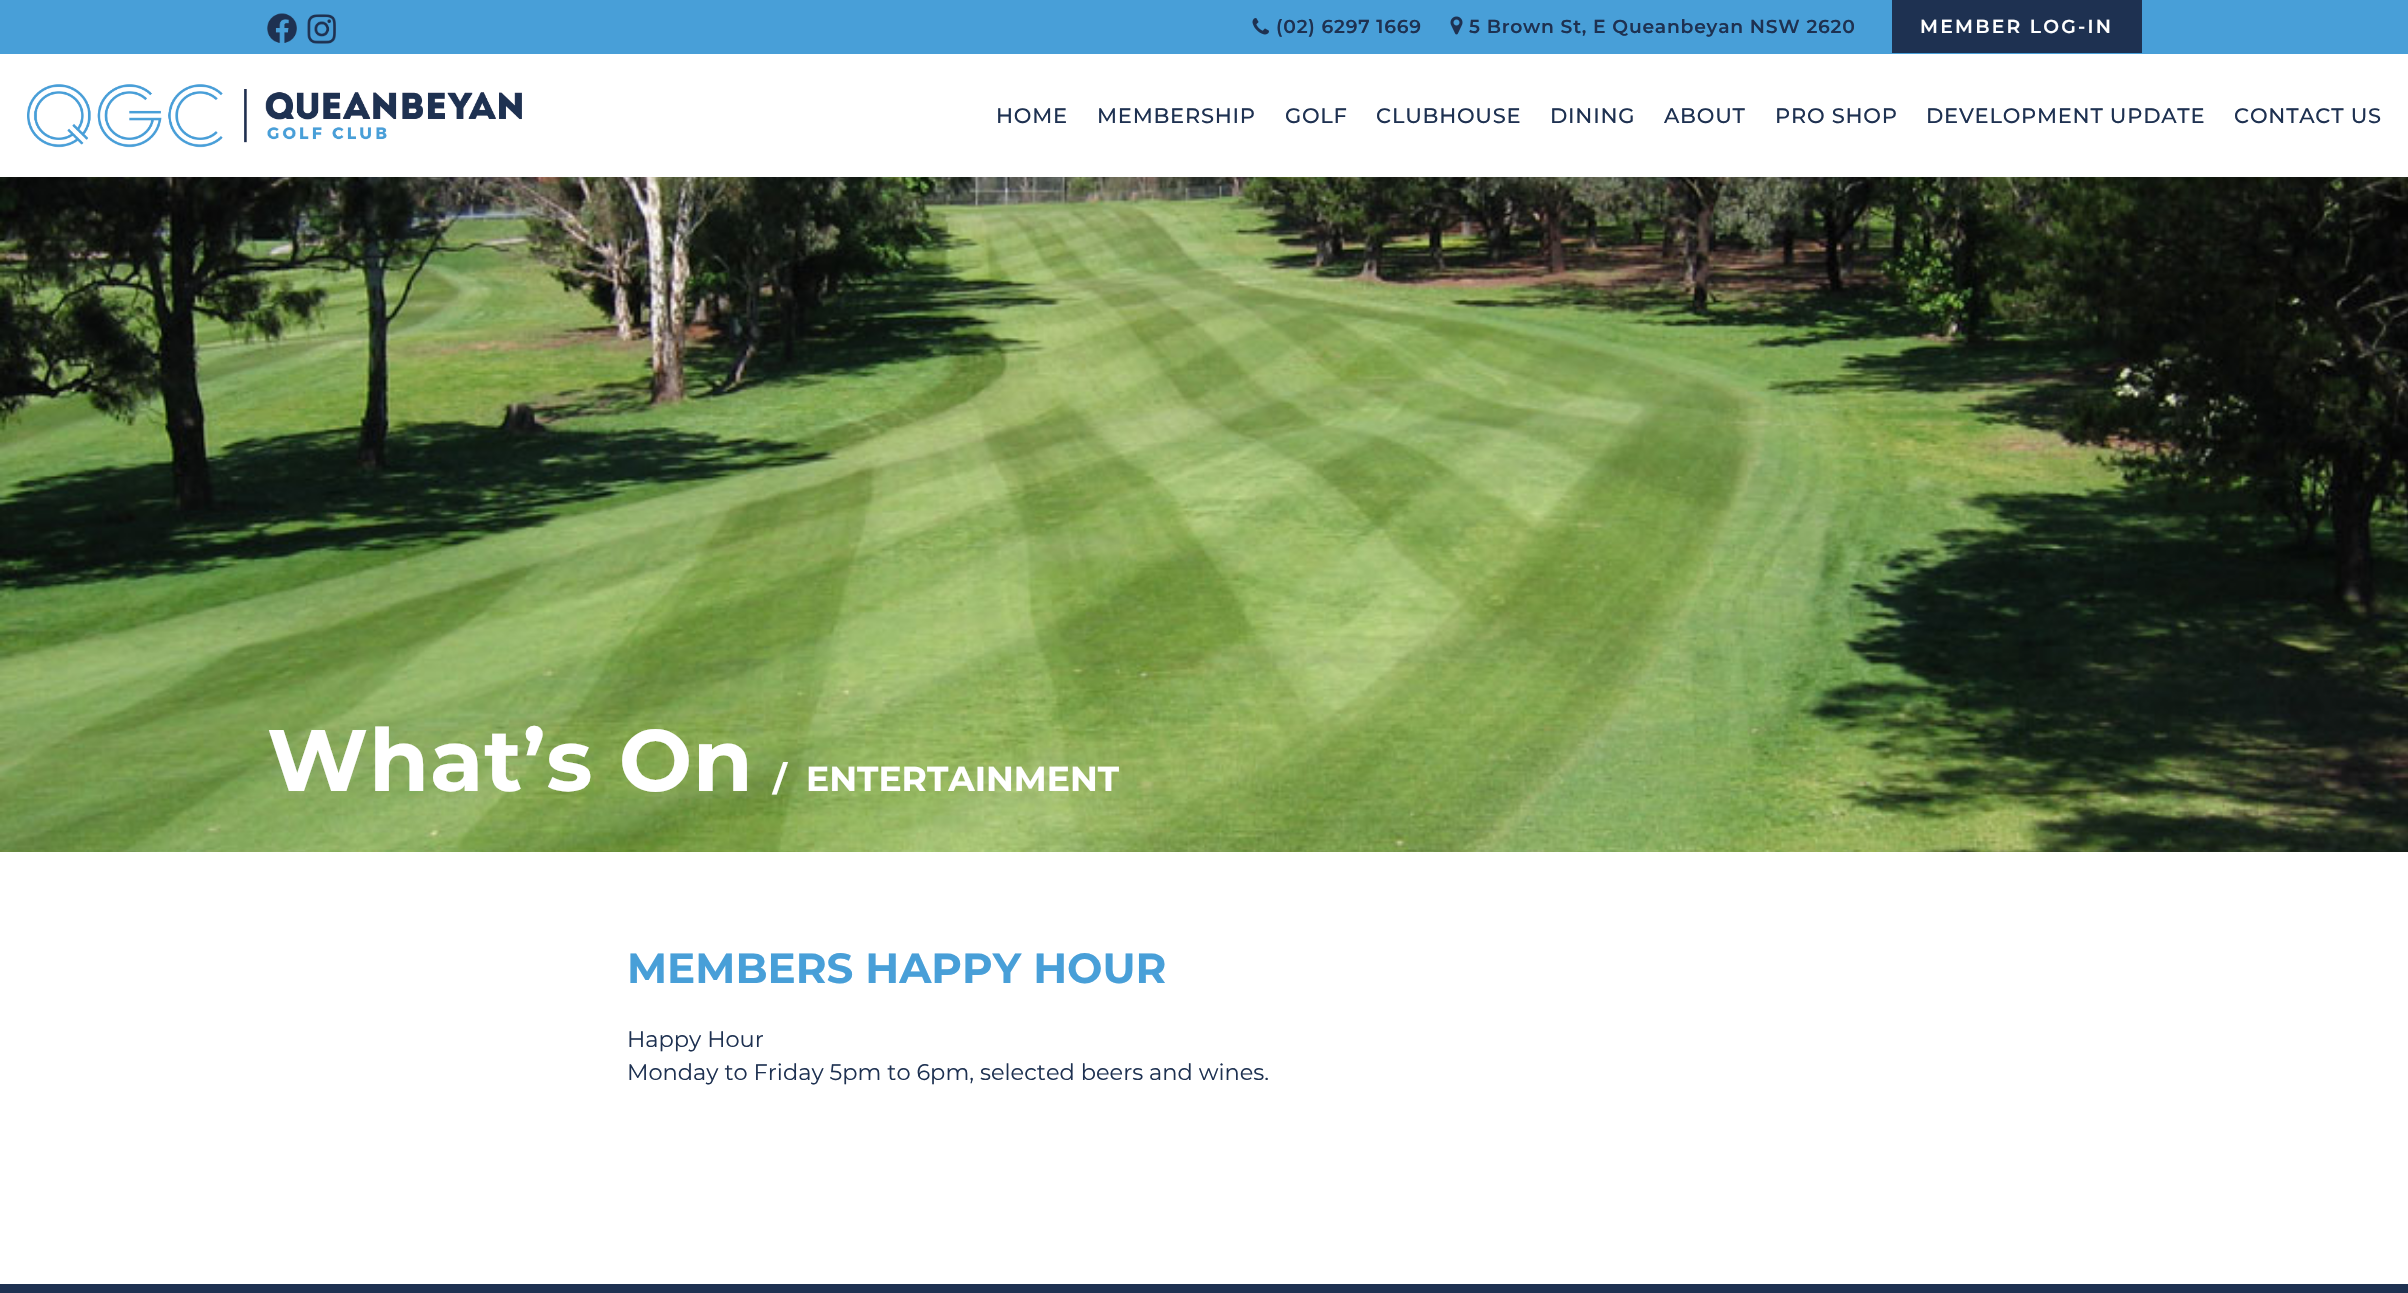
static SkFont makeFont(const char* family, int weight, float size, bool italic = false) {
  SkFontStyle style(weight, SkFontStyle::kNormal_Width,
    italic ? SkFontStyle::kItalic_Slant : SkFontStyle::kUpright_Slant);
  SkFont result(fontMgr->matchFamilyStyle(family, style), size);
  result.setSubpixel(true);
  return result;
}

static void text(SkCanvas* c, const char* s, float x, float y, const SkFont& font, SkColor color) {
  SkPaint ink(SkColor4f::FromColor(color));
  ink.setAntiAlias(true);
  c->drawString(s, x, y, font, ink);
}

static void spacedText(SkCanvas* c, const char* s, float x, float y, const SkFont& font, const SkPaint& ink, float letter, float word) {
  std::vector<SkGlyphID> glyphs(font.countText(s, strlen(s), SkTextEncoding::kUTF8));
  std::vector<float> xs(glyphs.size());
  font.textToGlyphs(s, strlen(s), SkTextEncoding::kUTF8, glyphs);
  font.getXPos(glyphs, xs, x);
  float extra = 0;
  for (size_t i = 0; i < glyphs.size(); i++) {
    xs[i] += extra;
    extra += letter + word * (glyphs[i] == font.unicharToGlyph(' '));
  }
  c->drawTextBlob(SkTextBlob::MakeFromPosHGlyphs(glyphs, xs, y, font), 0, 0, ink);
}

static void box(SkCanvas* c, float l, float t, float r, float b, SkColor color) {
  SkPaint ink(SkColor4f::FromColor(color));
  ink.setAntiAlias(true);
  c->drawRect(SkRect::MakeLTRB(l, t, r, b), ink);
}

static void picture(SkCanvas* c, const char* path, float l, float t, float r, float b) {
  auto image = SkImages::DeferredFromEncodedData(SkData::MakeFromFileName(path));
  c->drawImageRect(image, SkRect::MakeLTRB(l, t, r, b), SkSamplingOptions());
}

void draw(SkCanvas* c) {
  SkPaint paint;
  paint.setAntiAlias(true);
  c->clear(0xffffffff);
  box(c, 0, 0, 2408, 54, 0xff489fd8);
  picture(c, "img_01.png", 267, 13, 297, 43);
  picture(c, "img_02.png", 307, 14, 336, 44);
  picture(c, "img_03.png", 1252, 18, 1269, 35);
  SkFont face1 = makeFont("Montserrat", 600, 18.75f);
  paint.setColor(0xff1e3151);
  spacedText(c, "(02) 6297 1669", 1276, 33, face1, paint, 0.75f, 0);
  picture(c, "img_04.png", 1450, 16, 1463, 35);
  spacedText(c, "5 Brown St, E Queanbeyan NSW 2620", 1469, 33, face1, paint, 0.75f, 0);
  box(c, 1892, 0, 2142, 53, 0xff1e3151);
  paint.setColor(0xffffffff);
  spacedText(c, "MEMBER LOG-IN", 1920, 33, face1, paint, 2.25f, 0);
  picture(c, "img_05.png", 27, 84, 522, 148);
  SkFont face2 = makeFont("Montserrat", 500, 21);
  paint.setColor(0xff1e3151);
  spacedText(c, "HOME", 996, 123, face2, paint, 0.75f, 0);
  spacedText(c, "MEMBERSHIP", 1097, 123, face2, paint, 0.75f, 0);
  spacedText(c, "GOLF", 1285, 123, face2, paint, 0.75f, 0);
  spacedText(c, "CLUBHOUSE", 1376, 123, face2, paint, 0.75f, 0);
  spacedText(c, "DINING", 1550, 123, face2, paint, 0.75f, 0);
  spacedText(c, "ABOUT", 1664, 123, face2, paint, 0.75f, 0);
  spacedText(c, "PRO SHOP", 1775, 123, face2, paint, 0.75f, 0);
  spacedText(c, "DEVELOPMENT UPDATE", 1926, 123, face2, paint, 0.75f, 0);
  spacedText(c, "CONTACT US", 2234, 123, face2, paint, 0.75f, 0);
  picture(c, "img_06.png", 0, 177, 2408, 852);
  SkFont face3 = makeFont("Montserrat", 700, 87);
  paint.setColor(0xffffffff);
  spacedText(c, "What’s On", 267, 791, face3, paint, 0.75f, 0);
  SkFont face4 = makeFont("Montserrat", 700, 34.5f);
  text(c, "/  ENTERTAINMENT", 773, 791, face4, 0xffffffff);
  SkFont face5 = makeFont("Montserrat", 700, 42);
  text(c, "MEMBERS HAPPY HOUR", 627, 983, face5, 0xff489fd8);
  SkFont face6 = makeFont("Montserrat", 400, 22.5f);
  text(c, "Happy Hour", 627, 1047, face6, 0xff1e3151);
  text(c, "Monday to Friday 5pm to 6pm, selected beers and wines.", 627, 1080, face6, 0xff1e3151);
  box(c, 0, 1284, 2408, 1293, 0xff1e3151);
}
